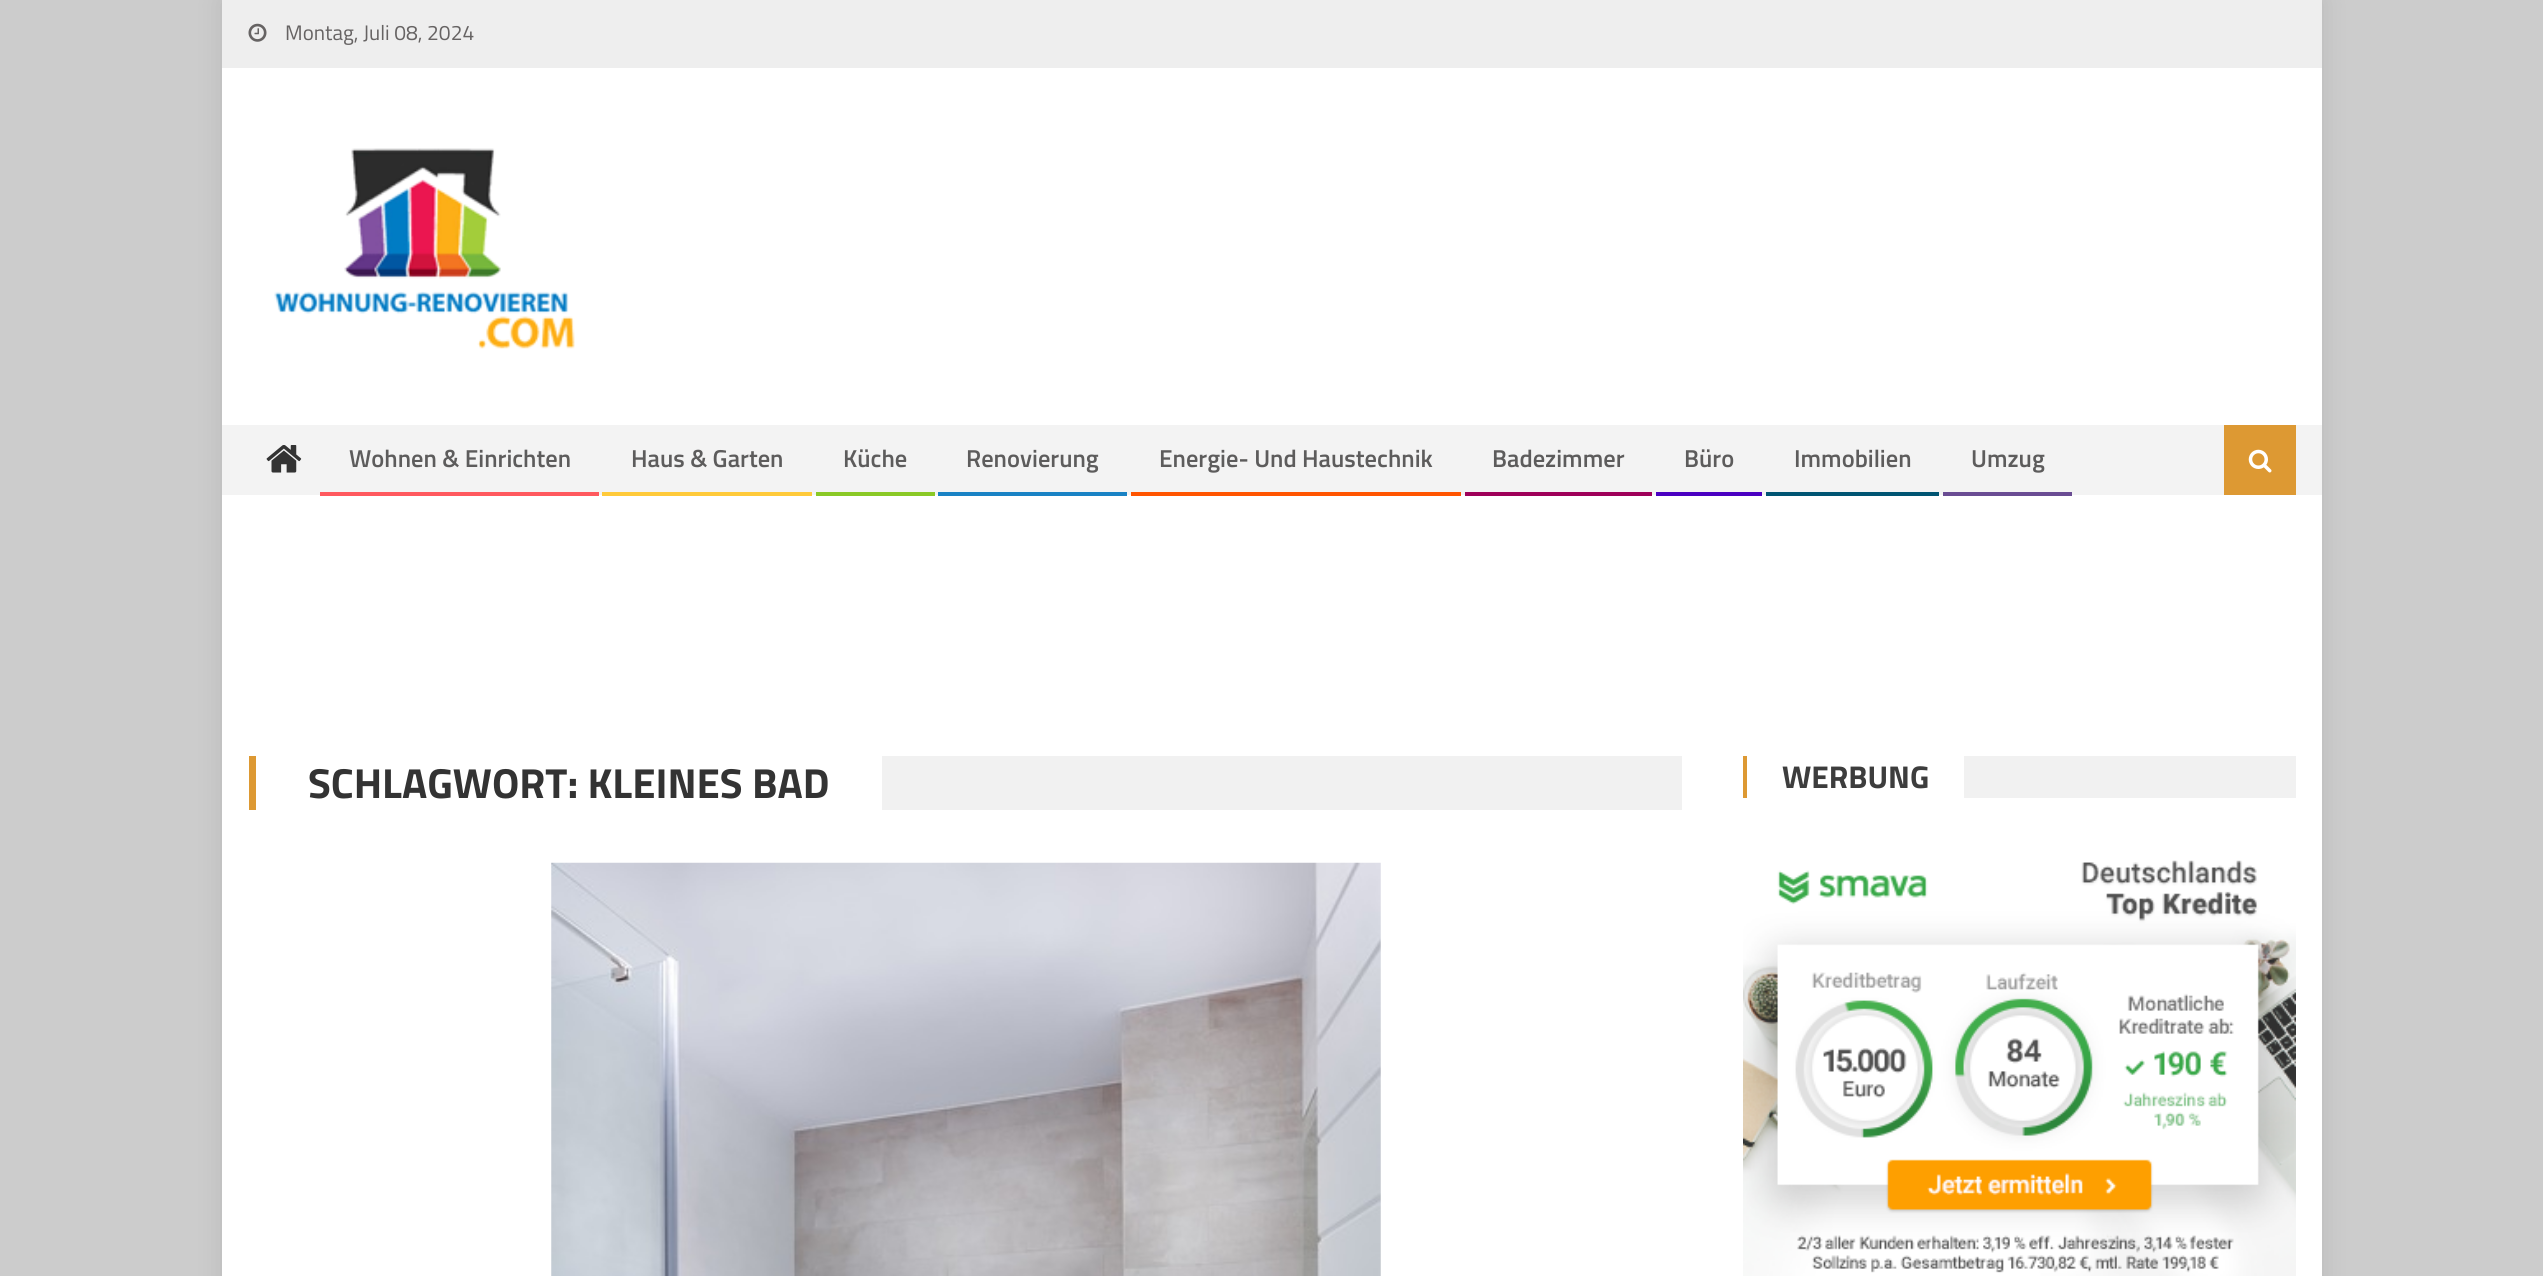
#include <cairo.h>
#include <math.h>
#include <stddef.h>


static void round_rect(cairo_t *cr, double x, double y, double w, double h, double r) {
    cairo_new_sub_path(cr);
    cairo_arc(cr, x + w - r, y + h - r, r, 0, M_PI / 2);
    cairo_arc(cr, x + r, y + h - r, r, M_PI / 2, M_PI);
    cairo_arc(cr, x + r, y + r, r, M_PI, 1.5 * M_PI);
    cairo_arc(cr, x + w - r, y + r, r, 1.5 * M_PI, 2 * M_PI);
    cairo_close_path(cr);
}

static void shadow(cairo_t *cr, double x, double y, double w, double h, double r, double blur, double alpha) {
    cairo_push_group_with_content(cr, CAIRO_CONTENT_ALPHA);
    cairo_set_operator(cr, CAIRO_OPERATOR_SOURCE);
    for (int i = 15; i >= -15 && fmin(w, h) + blur * i / 3 > 0; i -= 2) {
        double e = blur * i / 6;
        cairo_set_source_rgba(cr, 0, 0, 0, alpha * erfc((i - 1) / 8.5) / 2);
        round_rect(cr, x - e, y - e, w + 2 * e, h + 2 * e, fmax(0, fmin(r + e + blur * .6, fmin(w, h) / 2 + e)));
        cairo_fill(cr);
    }
    cairo_pattern_t *soft = cairo_pop_group(cr);
    cairo_mask(cr, soft);
    cairo_pattern_destroy(soft);
}

static void picture(cairo_t *cr, const char *path, double x, double y, double w, double h) {
    cairo_surface_t *image = cairo_image_surface_create_from_png(path);
    cairo_save(cr);
    cairo_set_source_surface(cr, image, x, y);
    cairo_rectangle(cr, x, y, w, h);
    cairo_fill(cr);
    cairo_restore(cr);
    cairo_surface_destroy(image);
}

int main(void) {
    cairo_surface_t *surface = cairo_image_surface_create(CAIRO_FORMAT_RGB24, 2543, 1276);
    cairo_t *cr = cairo_create(surface);
    cairo_font_options_t *options = cairo_font_options_create();
    cairo_font_options_set_hint_metrics(options, CAIRO_HINT_METRICS_OFF);
    cairo_font_options_set_hint_style(options, CAIRO_HINT_STYLE_NONE);
    cairo_set_font_options(cr, options);
    cairo_set_miter_limit(cr, 4);
    cairo_set_source_rgb(cr, 0.8, 0.8, 0.8);
    cairo_paint(cr);
    cairo_set_source_rgb(cr, 0, 0, 0);
    shadow(cr, 222, 0, 2100, 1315, 0, 13, 0.1);
    cairo_set_source_rgb(cr, 1, 1, 1);
    cairo_rectangle(cr, 222, 68, 2100, 1208);
    cairo_fill(cr);
    cairo_set_source_rgb(cr, 0.933, 0.933, 0.933);
    cairo_rectangle(cr, 222, 0, 2100, 68);
    cairo_fill(cr);
    picture(cr, "img1.png", 248, 23, 19, 19);
    cairo_select_font_face(cr, "Titillium Web", CAIRO_FONT_SLANT_NORMAL, CAIRO_FONT_WEIGHT_NORMAL);
    cairo_set_font_size(cr, 21);
    cairo_set_source_rgb(cr, 0.4, 0.388, 0.388);
    cairo_move_to(cr, 285, 40);
    cairo_show_text(cr, "Montag, Juli 08, 2024");
    picture(cr, "img2.png", 274, 148, 301, 201);
    cairo_set_source_rgb(cr, 0.953, 0.953, 0.953);
    cairo_rectangle(cr, 222, 425, 2100, 70);
    cairo_fill(cr);
    picture(cr, "img3.png", 266, 445, 36, 28);
    cairo_set_source_rgb(cr, 1, 0.349, 0.369);
    cairo_rectangle(cr, 320, 492, 279, 4);
    cairo_fill(cr);
    cairo_select_font_face(cr, "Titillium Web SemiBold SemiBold", CAIRO_FONT_SLANT_NORMAL, CAIRO_FONT_WEIGHT_NORMAL);
    cairo_set_font_size(cr, 24.5);
    cairo_set_source_rgb(cr, 0.365, 0.361, 0.361);
    cairo_move_to(cr, 349, 467);
    cairo_show_text(cr, "Wohnen & Einrichten");
    cairo_set_source_rgb(cr, 1, 0.792, 0.227);
    cairo_rectangle(cr, 602, 492, 210, 4);
    cairo_fill(cr);
    cairo_set_source_rgb(cr, 0.365, 0.361, 0.361);
    cairo_move_to(cr, 631, 467);
    cairo_show_text(cr, "Haus & Garten");
    cairo_set_source_rgb(cr, 0.541, 0.788, 0.149);
    cairo_rectangle(cr, 816, 492, 119, 4);
    cairo_fill(cr);
    cairo_set_source_rgb(cr, 0.365, 0.361, 0.361);
    cairo_move_to(cr, 843, 467);
    cairo_show_text(cr, "Küche");
    cairo_set_source_rgb(cr, 0.098, 0.51, 0.769);
    cairo_rectangle(cr, 938, 492, 189, 4);
    cairo_fill(cr);
    cairo_set_source_rgb(cr, 0.365, 0.361, 0.361);
    cairo_move_to(cr, 966, 467);
    cairo_show_text(cr, "Renovierung");
    cairo_set_source_rgb(cr, 1, 0.329, 0);
    cairo_rectangle(cr, 1131, 492, 330, 4);
    cairo_fill(cr);
    cairo_set_source_rgb(cr, 0.365, 0.361, 0.361);
    cairo_move_to(cr, 1159, 467);
    cairo_show_text(cr, "Energie- Und Haustechnik");
    cairo_set_source_rgb(cr, 0.62, 0, 0.349);
    cairo_rectangle(cr, 1465, 492, 187, 4);
    cairo_fill(cr);
    cairo_set_source_rgb(cr, 0.365, 0.361, 0.361);
    cairo_move_to(cr, 1492, 467);
    cairo_show_text(cr, "Badezimmer");
    cairo_set_source_rgb(cr, 0.29, 0, 0.757);
    cairo_rectangle(cr, 1656, 492, 106, 4);
    cairo_fill(cr);
    cairo_set_source_rgb(cr, 0.365, 0.361, 0.361);
    cairo_move_to(cr, 1684, 467);
    cairo_show_text(cr, "Büro");
    cairo_set_source_rgb(cr, 0, 0.329, 0.447);
    cairo_rectangle(cr, 1766, 492, 173, 4);
    cairo_fill(cr);
    cairo_set_source_rgb(cr, 0.365, 0.361, 0.361);
    cairo_move_to(cr, 1794, 467);
    cairo_show_text(cr, "Immobilien");
    cairo_set_source_rgb(cr, 0.416, 0.298, 0.576);
    cairo_rectangle(cr, 1943, 492, 129, 4);
    cairo_fill(cr);
    cairo_set_source_rgb(cr, 0.365, 0.361, 0.361);
    cairo_move_to(cr, 1971, 467);
    cairo_show_text(cr, "Umzug");
    cairo_set_source_rgb(cr, 0.867, 0.6, 0.2);
    cairo_rectangle(cr, 2224, 425, 72, 70);
    cairo_fill(cr);
    picture(cr, "img4.png", 2248, 449, 24, 24);
    cairo_set_source_rgb(cr, 0.945, 0.945, 0.945);
    cairo_rectangle(cr, 882, 756, 800, 54);
    cairo_fill(cr);
    cairo_set_source_rgb(cr, 0.867, 0.6, 0.2);
    cairo_rectangle(cr, 249, 756, 7, 54);
    cairo_fill(cr);
    cairo_select_font_face(cr, "Titillium Web", CAIRO_FONT_SLANT_NORMAL, CAIRO_FONT_WEIGHT_BOLD);
    cairo_set_font_size(cr, 42);
    cairo_set_source_rgb(cr, 0.2, 0.2, 0.2);
    cairo_move_to(cr, 308, 798);
    cairo_show_text(cr, "SCHLAGWORT: KLEINES BAD");
    picture(cr, "img5.png", 551, 862, 830, 414);
    cairo_set_source_rgb(cr, 0.945, 0.945, 0.945);
    cairo_rectangle(cr, 1964, 756, 332, 42);
    cairo_fill(cr);
    cairo_set_source_rgb(cr, 0.867, 0.6, 0.2);
    cairo_rectangle(cr, 1743, 756, 4, 42);
    cairo_fill(cr);
    cairo_set_font_size(cr, 31.5);
    cairo_set_source_rgb(cr, 0.239, 0.239, 0.239);
    cairo_move_to(cr, 1782, 788);
    cairo_show_text(cr, "WERBUNG");
    picture(cr, "img6.png", 1743, 860, 553, 416);
    cairo_surface_write_to_png(surface, "page.png");
    cairo_font_options_destroy(options);
    cairo_destroy(cr);
    cairo_surface_destroy(surface);
    return 0;
}
